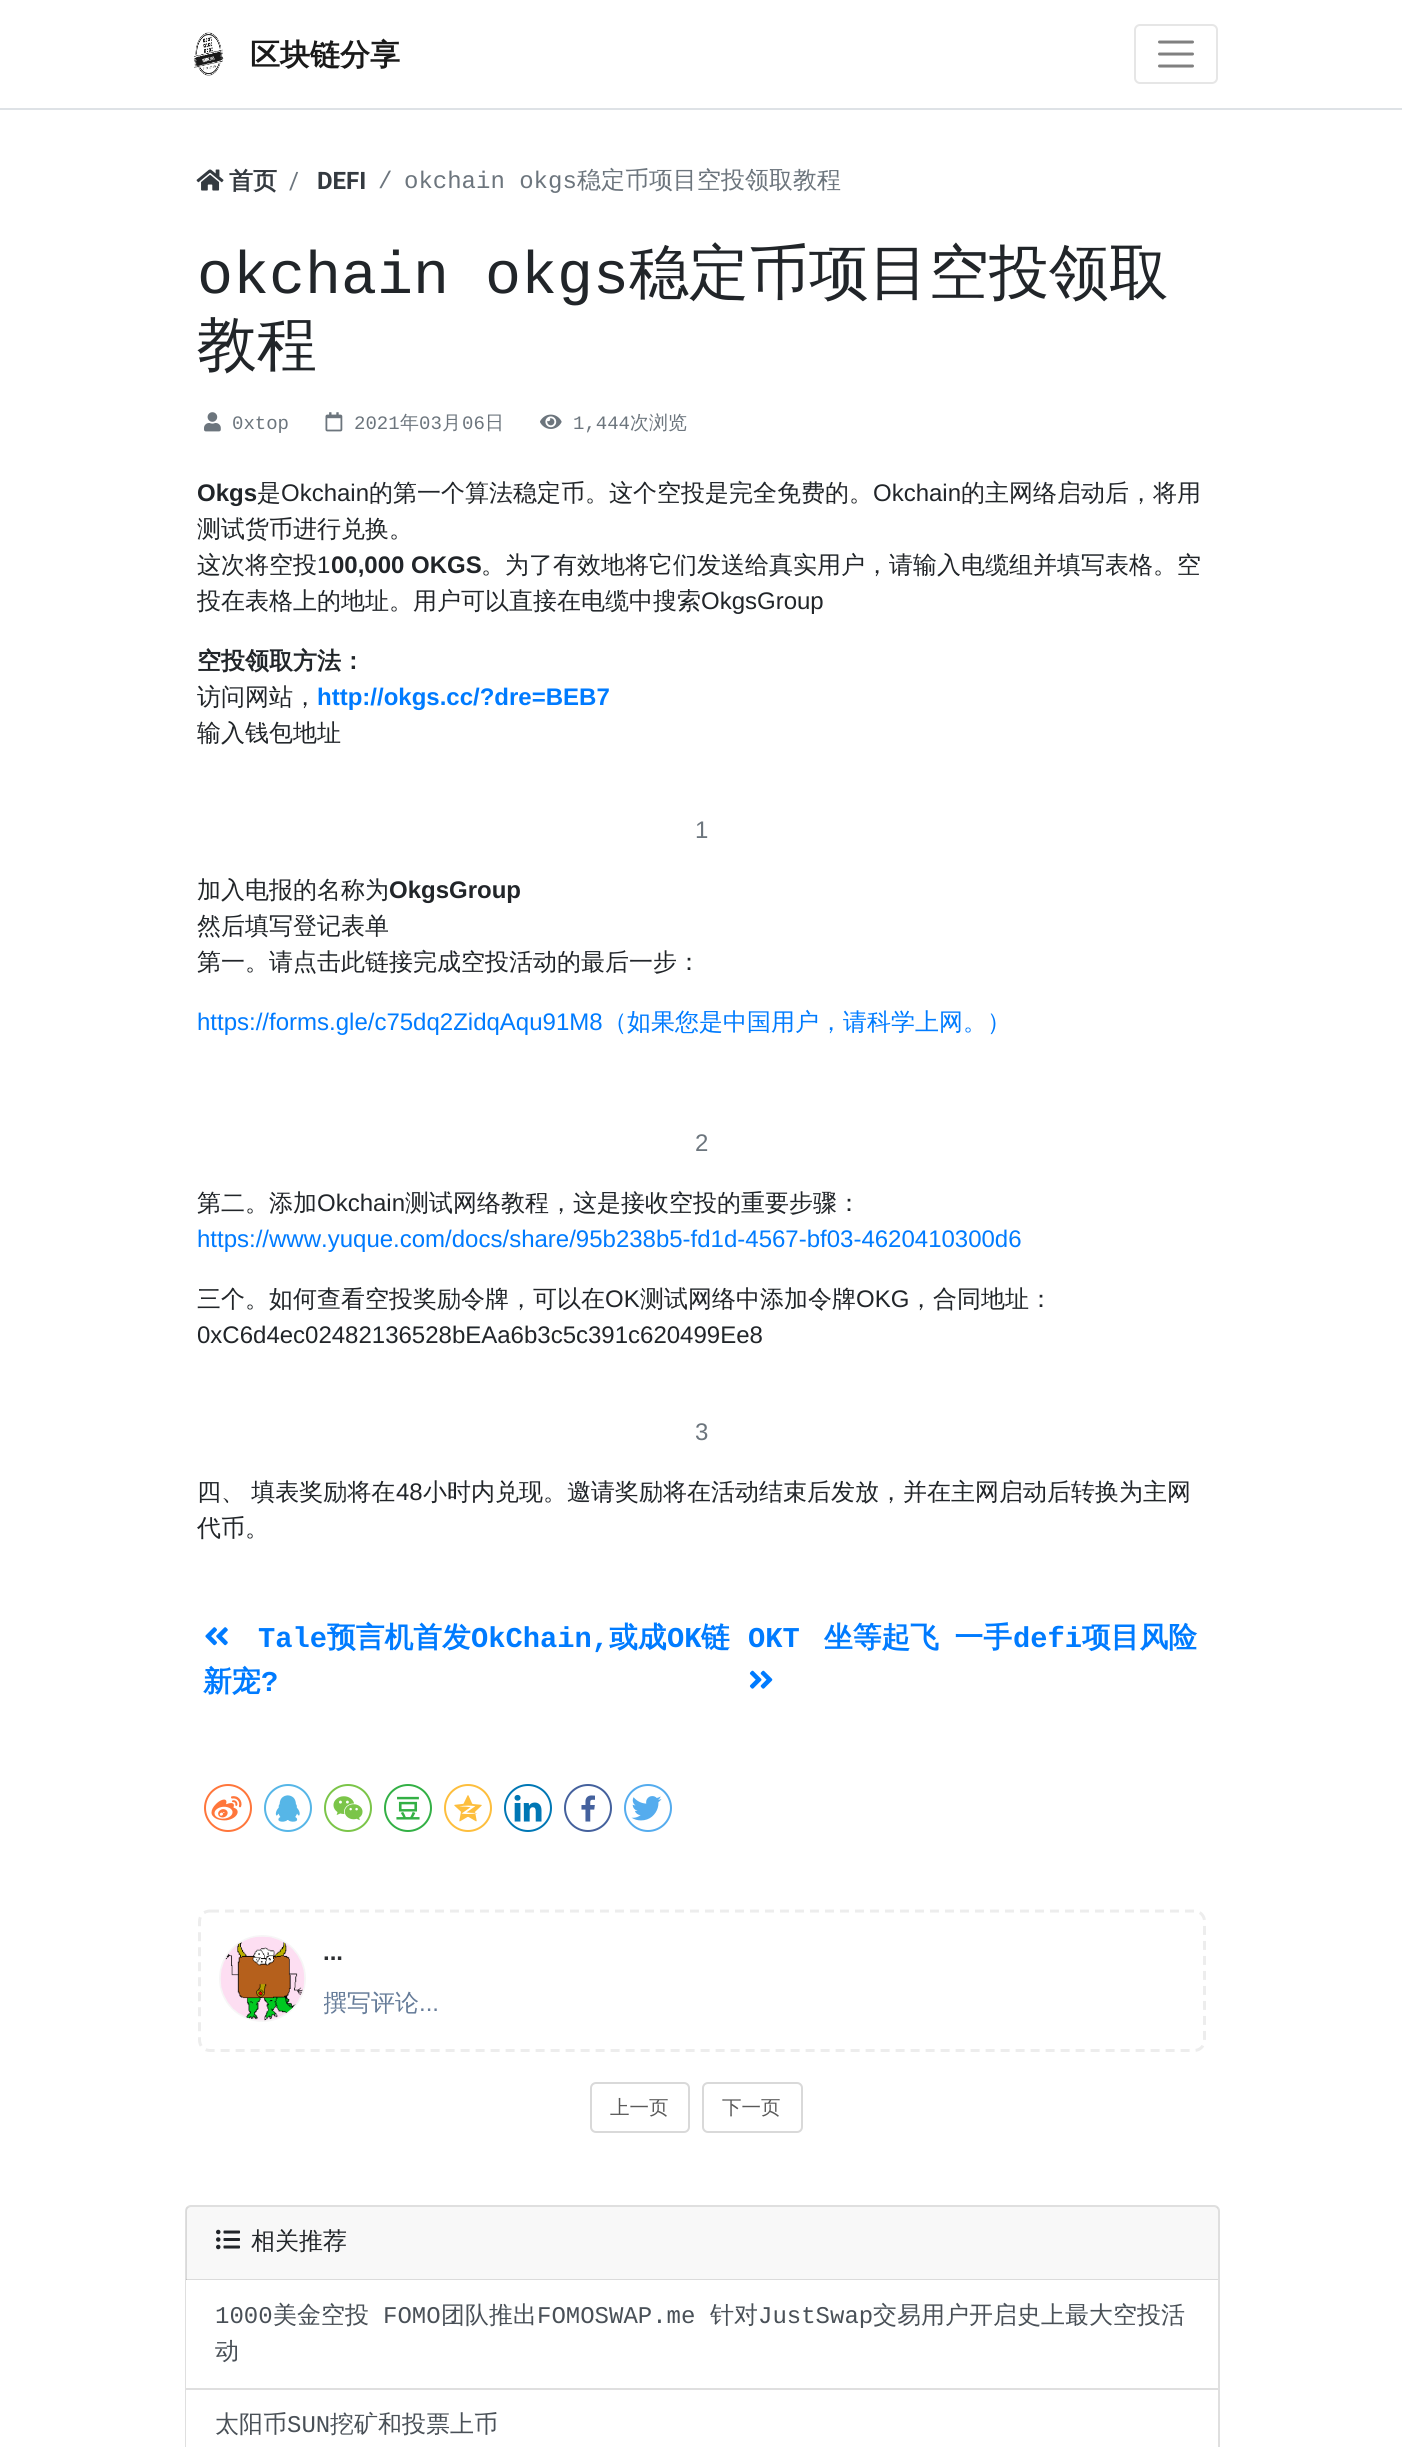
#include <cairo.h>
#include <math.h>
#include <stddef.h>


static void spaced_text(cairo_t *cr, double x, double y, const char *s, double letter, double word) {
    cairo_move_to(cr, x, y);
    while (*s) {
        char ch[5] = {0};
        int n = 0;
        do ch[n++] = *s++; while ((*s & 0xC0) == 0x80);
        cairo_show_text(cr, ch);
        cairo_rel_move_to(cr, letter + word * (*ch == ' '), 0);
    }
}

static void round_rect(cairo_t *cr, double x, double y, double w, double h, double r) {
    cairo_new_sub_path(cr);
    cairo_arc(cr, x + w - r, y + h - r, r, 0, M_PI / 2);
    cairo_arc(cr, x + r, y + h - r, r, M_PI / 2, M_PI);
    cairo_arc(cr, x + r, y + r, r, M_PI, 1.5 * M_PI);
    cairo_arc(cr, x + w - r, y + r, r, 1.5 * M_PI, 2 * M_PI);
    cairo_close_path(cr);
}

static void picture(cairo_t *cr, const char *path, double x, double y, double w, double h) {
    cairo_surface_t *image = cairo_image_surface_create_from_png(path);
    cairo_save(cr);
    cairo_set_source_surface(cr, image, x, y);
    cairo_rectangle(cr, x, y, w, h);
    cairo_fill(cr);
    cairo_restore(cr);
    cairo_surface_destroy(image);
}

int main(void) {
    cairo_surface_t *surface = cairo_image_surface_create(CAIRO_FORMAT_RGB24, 1402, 2447);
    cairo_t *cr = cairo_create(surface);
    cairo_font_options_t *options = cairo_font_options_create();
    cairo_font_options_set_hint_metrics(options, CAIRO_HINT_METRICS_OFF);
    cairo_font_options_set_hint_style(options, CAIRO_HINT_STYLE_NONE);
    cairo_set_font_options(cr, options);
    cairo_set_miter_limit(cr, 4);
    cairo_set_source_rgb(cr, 1, 1, 1);
    cairo_paint(cr);
    cairo_set_source_rgb(cr, 0.871, 0.886, 0.902);
    cairo_rectangle(cr, 0, 108, 1402, 2);
    cairo_fill(cr);
    picture(cr, "img1.png", 193, 32, 31, 44);
    cairo_select_font_face(cr, "WenQuanYi Zen Hei", CAIRO_FONT_SLANT_NORMAL, CAIRO_FONT_WEIGHT_BOLD);
    cairo_set_font_size(cr, 30);
    cairo_set_source_rgb(cr, 0.102, 0.102, 0.102);
    cairo_move_to(cr, 250, 65);
    cairo_show_text(cr, "区块链分享");
    round_rect(cr, 1135, 25, 82, 58, 5);
    cairo_set_source_rgb(cr, 0.902, 0.902, 0.902);
    cairo_stroke(cr);
    cairo_new_path(cr);
    cairo_move_to(cr, 1159.5, 42);
    cairo_line_to(cr, 1192.5, 42);
    cairo_move_to(cr, 1159.5, 54);
    cairo_line_to(cr, 1192.5, 54);
    cairo_move_to(cr, 1159.5, 66);
    cairo_line_to(cr, 1192.5, 66);
    cairo_set_source_rgb(cr, 0.502, 0.502, 0.502);
    cairo_set_line_width(cr, 3);
    cairo_set_line_cap(cr, CAIRO_LINE_CAP_ROUND);
    cairo_stroke(cr);
    picture(cr, "img2.png", 196, 169, 28, 22);
    cairo_set_font_size(cr, 24);
    cairo_set_source_rgb(cr, 0.204, 0.227, 0.251);
    cairo_move_to(cr, 229, 189);
    cairo_show_text(cr, "首页");
    cairo_select_font_face(cr, "Roboto", CAIRO_FONT_SLANT_NORMAL, CAIRO_FONT_WEIGHT_NORMAL);
    cairo_set_source_rgb(cr, 0.424, 0.459, 0.49);
    cairo_move_to(cr, 289, 189);
    cairo_show_text(cr, "/");
    cairo_select_font_face(cr, "Roboto", CAIRO_FONT_SLANT_NORMAL, CAIRO_FONT_WEIGHT_BOLD);
    cairo_set_source_rgb(cr, 0.204, 0.227, 0.251);
    cairo_move_to(cr, 317, 189);
    cairo_show_text(cr, "DEFI");
    cairo_select_font_face(cr, "Liberation Mono", CAIRO_FONT_SLANT_NORMAL, CAIRO_FONT_WEIGHT_NORMAL);
    cairo_set_source_rgb(cr, 0.424, 0.459, 0.49);
    cairo_move_to(cr, 378, 188);
    cairo_show_text(cr, "/");
    cairo_move_to(cr, 404, 188);
    cairo_show_text(cr, "okchain okgs");
    cairo_select_font_face(cr, "WenQuanYi Zen Hei Medium", CAIRO_FONT_SLANT_NORMAL, CAIRO_FONT_WEIGHT_NORMAL);
    cairo_move_to(cr, 577, 188);
    cairo_show_text(cr, "稳定币项目空投领取教程");
    cairo_select_font_face(cr, "Liberation Mono", CAIRO_FONT_SLANT_NORMAL, CAIRO_FONT_WEIGHT_NORMAL);
    cairo_set_font_size(cr, 60);
    cairo_set_source_rgb(cr, 0.129, 0.145, 0.161);
    cairo_move_to(cr, 197, 293);
    cairo_show_text(cr, "okchain okgs");
    cairo_select_font_face(cr, "WenQuanYi Zen Hei Medium", CAIRO_FONT_SLANT_NORMAL, CAIRO_FONT_WEIGHT_NORMAL);
    cairo_move_to(cr, 629, 293);
    cairo_show_text(cr, "稳定币项目空投领取");
    cairo_move_to(cr, 197, 365);
    cairo_show_text(cr, "教程");
    picture(cr, "img3.png", 204, 412, 17, 20);
    cairo_select_font_face(cr, "Liberation Mono", CAIRO_FONT_SLANT_NORMAL, CAIRO_FONT_WEIGHT_NORMAL);
    cairo_set_font_size(cr, 19);
    cairo_set_source_rgb(cr, 0.424, 0.459, 0.49);
    cairo_move_to(cr, 232, 429);
    cairo_show_text(cr, "0xtop");
    picture(cr, "img4.png", 325, 412, 18, 20);
    cairo_move_to(cr, 354, 429);
    cairo_show_text(cr, "2021");
    cairo_select_font_face(cr, "WenQuanYi Zen Hei Medium", CAIRO_FONT_SLANT_NORMAL, CAIRO_FONT_WEIGHT_NORMAL);
    cairo_move_to(cr, 400, 429);
    cairo_show_text(cr, "年");
    cairo_select_font_face(cr, "Liberation Mono", CAIRO_FONT_SLANT_NORMAL, CAIRO_FONT_WEIGHT_NORMAL);
    cairo_move_to(cr, 419, 429);
    cairo_show_text(cr, "03");
    cairo_select_font_face(cr, "WenQuanYi Zen Hei Medium", CAIRO_FONT_SLANT_NORMAL, CAIRO_FONT_WEIGHT_NORMAL);
    cairo_move_to(cr, 442, 429);
    cairo_show_text(cr, "月");
    cairo_select_font_face(cr, "Liberation Mono", CAIRO_FONT_SLANT_NORMAL, CAIRO_FONT_WEIGHT_NORMAL);
    cairo_move_to(cr, 462, 429);
    cairo_show_text(cr, "06");
    cairo_select_font_face(cr, "WenQuanYi Zen Hei Medium", CAIRO_FONT_SLANT_NORMAL, CAIRO_FONT_WEIGHT_NORMAL);
    cairo_move_to(cr, 485, 429);
    cairo_show_text(cr, "日");
    picture(cr, "img5.png", 540, 414, 22, 15);
    cairo_select_font_face(cr, "Liberation Mono", CAIRO_FONT_SLANT_NORMAL, CAIRO_FONT_WEIGHT_NORMAL);
    cairo_move_to(cr, 573, 429);
    cairo_show_text(cr, "1,444");
    cairo_select_font_face(cr, "WenQuanYi Zen Hei Medium", CAIRO_FONT_SLANT_NORMAL, CAIRO_FONT_WEIGHT_NORMAL);
    cairo_move_to(cr, 630, 429);
    cairo_show_text(cr, "次浏览");
    cairo_select_font_face(cr, "Liberation Sans", CAIRO_FONT_SLANT_NORMAL, CAIRO_FONT_WEIGHT_BOLD);
    cairo_set_font_size(cr, 24);
    cairo_set_source_rgb(cr, 0.129, 0.145, 0.161);
    cairo_move_to(cr, 197, 501);
    cairo_show_text(cr, "Okgs");
    cairo_select_font_face(cr, "WenQuanYi Zen Hei Medium", CAIRO_FONT_SLANT_NORMAL, CAIRO_FONT_WEIGHT_NORMAL);
    cairo_move_to(cr, 257, 501);
    cairo_show_text(cr, "是");
    cairo_select_font_face(cr, "Liberation Sans", CAIRO_FONT_SLANT_NORMAL, CAIRO_FONT_WEIGHT_NORMAL);
    cairo_move_to(cr, 281, 501);
    cairo_show_text(cr, "Okchain");
    cairo_select_font_face(cr, "WenQuanYi Zen Hei Medium", CAIRO_FONT_SLANT_NORMAL, CAIRO_FONT_WEIGHT_NORMAL);
    cairo_move_to(cr, 369, 501);
    cairo_show_text(cr, "的第一个算法稳定币。这个空投是完全免费的。");
    cairo_select_font_face(cr, "Liberation Sans", CAIRO_FONT_SLANT_NORMAL, CAIRO_FONT_WEIGHT_NORMAL);
    cairo_move_to(cr, 873, 501);
    cairo_show_text(cr, "Okchain");
    cairo_select_font_face(cr, "WenQuanYi Zen Hei Medium", CAIRO_FONT_SLANT_NORMAL, CAIRO_FONT_WEIGHT_NORMAL);
    cairo_move_to(cr, 961, 501);
    cairo_show_text(cr, "的主网络启动后，将用");
    cairo_move_to(cr, 197, 537);
    cairo_show_text(cr, "测试货币进行兑换。");
    cairo_move_to(cr, 197, 573);
    cairo_show_text(cr, "这次将空投");
    cairo_select_font_face(cr, "Liberation Sans", CAIRO_FONT_SLANT_NORMAL, CAIRO_FONT_WEIGHT_NORMAL);
    cairo_move_to(cr, 317, 573);
    cairo_show_text(cr, "1");
    cairo_select_font_face(cr, "Liberation Sans", CAIRO_FONT_SLANT_NORMAL, CAIRO_FONT_WEIGHT_BOLD);
    cairo_move_to(cr, 331, 573);
    cairo_show_text(cr, "00,000 OKGS");
    cairo_select_font_face(cr, "WenQuanYi Zen Hei Medium", CAIRO_FONT_SLANT_NORMAL, CAIRO_FONT_WEIGHT_NORMAL);
    cairo_move_to(cr, 481, 573);
    cairo_show_text(cr, "。为了有效地将它们发送给真实用户，请输入电缆组并填写表格。空");
    cairo_move_to(cr, 197, 609);
    cairo_show_text(cr, "投在表格上的地址。用户可以直接在电缆中搜索");
    cairo_select_font_face(cr, "Liberation Sans", CAIRO_FONT_SLANT_NORMAL, CAIRO_FONT_WEIGHT_NORMAL);
    cairo_move_to(cr, 701, 609);
    cairo_show_text(cr, "OkgsGroup");
    cairo_select_font_face(cr, "WenQuanYi Zen Hei", CAIRO_FONT_SLANT_NORMAL, CAIRO_FONT_WEIGHT_BOLD);
    cairo_move_to(cr, 197, 669);
    cairo_show_text(cr, "空投领取方法：");
    cairo_select_font_face(cr, "WenQuanYi Zen Hei Medium", CAIRO_FONT_SLANT_NORMAL, CAIRO_FONT_WEIGHT_NORMAL);
    cairo_move_to(cr, 197, 705);
    cairo_show_text(cr, "访问网站，");
    cairo_select_font_face(cr, "Liberation Sans", CAIRO_FONT_SLANT_NORMAL, CAIRO_FONT_WEIGHT_BOLD);
    cairo_set_source_rgb(cr, 0, 0.482, 1);
    cairo_move_to(cr, 317, 705);
    cairo_show_text(cr, "http://okgs.cc/?dre=BEB7");
    cairo_select_font_face(cr, "WenQuanYi Zen Hei Medium", CAIRO_FONT_SLANT_NORMAL, CAIRO_FONT_WEIGHT_NORMAL);
    cairo_set_source_rgb(cr, 0.129, 0.145, 0.161);
    cairo_move_to(cr, 197, 741);
    cairo_show_text(cr, "输入钱包地址");
    cairo_select_font_face(cr, "Liberation Sans", CAIRO_FONT_SLANT_NORMAL, CAIRO_FONT_WEIGHT_NORMAL);
    cairo_set_source_rgb(cr, 0.424, 0.459, 0.49);
    cairo_move_to(cr, 695, 838);
    cairo_show_text(cr, "1");
    cairo_select_font_face(cr, "WenQuanYi Zen Hei Medium", CAIRO_FONT_SLANT_NORMAL, CAIRO_FONT_WEIGHT_NORMAL);
    cairo_set_source_rgb(cr, 0.129, 0.145, 0.161);
    cairo_move_to(cr, 197, 898);
    cairo_show_text(cr, "加入电报的名称为");
    cairo_select_font_face(cr, "Liberation Sans", CAIRO_FONT_SLANT_NORMAL, CAIRO_FONT_WEIGHT_BOLD);
    cairo_move_to(cr, 389, 898);
    cairo_show_text(cr, "OkgsGroup");
    cairo_select_font_face(cr, "WenQuanYi Zen Hei Medium", CAIRO_FONT_SLANT_NORMAL, CAIRO_FONT_WEIGHT_NORMAL);
    cairo_move_to(cr, 197, 934);
    cairo_show_text(cr, "然后填写登记表单");
    cairo_move_to(cr, 197, 970);
    cairo_show_text(cr, "第一。请点击此链接完成空投活动的最后一步：");
    cairo_select_font_face(cr, "Liberation Sans", CAIRO_FONT_SLANT_NORMAL, CAIRO_FONT_WEIGHT_NORMAL);
    cairo_set_source_rgb(cr, 0, 0.482, 1);
    cairo_move_to(cr, 197, 1030);
    cairo_show_text(cr, "https://forms.gle/c75dq2ZidqAqu91M8");
    cairo_select_font_face(cr, "WenQuanYi Zen Hei Medium", CAIRO_FONT_SLANT_NORMAL, CAIRO_FONT_WEIGHT_NORMAL);
    cairo_move_to(cr, 603, 1030);
    cairo_show_text(cr, "（如果您是中国用户，请科学上网。）");
    cairo_select_font_face(cr, "Liberation Sans", CAIRO_FONT_SLANT_NORMAL, CAIRO_FONT_WEIGHT_NORMAL);
    cairo_set_source_rgb(cr, 0.424, 0.459, 0.49);
    cairo_move_to(cr, 695, 1151);
    cairo_show_text(cr, "2");
    cairo_select_font_face(cr, "WenQuanYi Zen Hei Medium", CAIRO_FONT_SLANT_NORMAL, CAIRO_FONT_WEIGHT_NORMAL);
    cairo_set_source_rgb(cr, 0.129, 0.145, 0.161);
    cairo_move_to(cr, 197, 1211);
    cairo_show_text(cr, "第二。添加");
    cairo_select_font_face(cr, "Liberation Sans", CAIRO_FONT_SLANT_NORMAL, CAIRO_FONT_WEIGHT_NORMAL);
    cairo_move_to(cr, 317, 1211);
    cairo_show_text(cr, "Okchain");
    cairo_select_font_face(cr, "WenQuanYi Zen Hei Medium", CAIRO_FONT_SLANT_NORMAL, CAIRO_FONT_WEIGHT_NORMAL);
    cairo_move_to(cr, 405, 1211);
    cairo_show_text(cr, "测试网络教程，这是接收空投的重要步骤：");
    cairo_select_font_face(cr, "Liberation Sans", CAIRO_FONT_SLANT_NORMAL, CAIRO_FONT_WEIGHT_NORMAL);
    cairo_set_source_rgb(cr, 0, 0.482, 1);
    cairo_move_to(cr, 197, 1247);
    cairo_show_text(cr, "https://www.yuque.com/docs/share/95b238b5-fd1d-4567-bf03-4620410300d6");
    cairo_select_font_face(cr, "WenQuanYi Zen Hei Medium", CAIRO_FONT_SLANT_NORMAL, CAIRO_FONT_WEIGHT_NORMAL);
    cairo_set_source_rgb(cr, 0.129, 0.145, 0.161);
    cairo_move_to(cr, 197, 1307);
    cairo_show_text(cr, "三个。如何查看空投奖励令牌，可以在");
    cairo_select_font_face(cr, "Liberation Sans", CAIRO_FONT_SLANT_NORMAL, CAIRO_FONT_WEIGHT_NORMAL);
    cairo_move_to(cr, 605, 1307);
    cairo_show_text(cr, "OK");
    cairo_select_font_face(cr, "WenQuanYi Zen Hei Medium", CAIRO_FONT_SLANT_NORMAL, CAIRO_FONT_WEIGHT_NORMAL);
    cairo_move_to(cr, 640, 1307);
    cairo_show_text(cr, "测试网络中添加令牌");
    cairo_select_font_face(cr, "Liberation Sans", CAIRO_FONT_SLANT_NORMAL, CAIRO_FONT_WEIGHT_NORMAL);
    cairo_move_to(cr, 856, 1307);
    cairo_show_text(cr, "OKG");
    cairo_select_font_face(cr, "WenQuanYi Zen Hei Medium", CAIRO_FONT_SLANT_NORMAL, CAIRO_FONT_WEIGHT_NORMAL);
    cairo_move_to(cr, 909, 1307);
    cairo_show_text(cr, "，合同地址：");
    cairo_select_font_face(cr, "Liberation Sans", CAIRO_FONT_SLANT_NORMAL, CAIRO_FONT_WEIGHT_NORMAL);
    cairo_move_to(cr, 197, 1343);
    cairo_show_text(cr, "0xC6d4ec02482136528bEAa6b3c5c391c620499Ee8");
    cairo_set_source_rgb(cr, 0.424, 0.459, 0.49);
    cairo_move_to(cr, 695, 1440);
    cairo_show_text(cr, "3");
    cairo_select_font_face(cr, "WenQuanYi Zen Hei Medium", CAIRO_FONT_SLANT_NORMAL, CAIRO_FONT_WEIGHT_NORMAL);
    cairo_set_source_rgb(cr, 0.129, 0.145, 0.161);
    spaced_text(cr, 197, 1500, "四、 填表奖励将在", 0, -1);
    cairo_select_font_face(cr, "Liberation Sans", CAIRO_FONT_SLANT_NORMAL, CAIRO_FONT_WEIGHT_NORMAL);
    cairo_move_to(cr, 396, 1500);
    cairo_show_text(cr, "48");
    cairo_select_font_face(cr, "WenQuanYi Zen Hei Medium", CAIRO_FONT_SLANT_NORMAL, CAIRO_FONT_WEIGHT_NORMAL);
    cairo_move_to(cr, 423, 1500);
    cairo_show_text(cr, "小时内兑现。邀请奖励将在活动结束后发放，并在主网启动后转换为主网");
    cairo_move_to(cr, 197, 1536);
    cairo_show_text(cr, "代币。");
    picture(cr, "img6.png", 205, 1627, 23, 19);
    cairo_select_font_face(cr, "Liberation Mono", CAIRO_FONT_SLANT_NORMAL, CAIRO_FONT_WEIGHT_BOLD);
    cairo_set_font_size(cr, 28.75);
    cairo_set_source_rgb(cr, 0, 0.482, 1);
    cairo_move_to(cr, 258, 1647);
    cairo_show_text(cr, "Tale");
    cairo_select_font_face(cr, "WenQuanYi Zen Hei", CAIRO_FONT_SLANT_NORMAL, CAIRO_FONT_WEIGHT_BOLD);
    cairo_move_to(cr, 327, 1647);
    cairo_show_text(cr, "预言机首发");
    cairo_select_font_face(cr, "Liberation Mono", CAIRO_FONT_SLANT_NORMAL, CAIRO_FONT_WEIGHT_BOLD);
    cairo_move_to(cr, 471, 1647);
    cairo_show_text(cr, "OkChain,");
    cairo_select_font_face(cr, "WenQuanYi Zen Hei", CAIRO_FONT_SLANT_NORMAL, CAIRO_FONT_WEIGHT_BOLD);
    cairo_move_to(cr, 609, 1647);
    cairo_show_text(cr, "或成");
    cairo_select_font_face(cr, "Liberation Mono", CAIRO_FONT_SLANT_NORMAL, CAIRO_FONT_WEIGHT_BOLD);
    cairo_move_to(cr, 667, 1647);
    cairo_show_text(cr, "OK");
    cairo_select_font_face(cr, "WenQuanYi Zen Hei", CAIRO_FONT_SLANT_NORMAL, CAIRO_FONT_WEIGHT_BOLD);
    cairo_move_to(cr, 701, 1647);
    cairo_show_text(cr, "链");
    cairo_move_to(cr, 203, 1691);
    cairo_show_text(cr, "新宠");
    cairo_select_font_face(cr, "Liberation Mono", CAIRO_FONT_SLANT_NORMAL, CAIRO_FONT_WEIGHT_BOLD);
    cairo_move_to(cr, 261, 1691);
    cairo_show_text(cr, "?");
    cairo_move_to(cr, 748, 1647);
    cairo_show_text(cr, "OKT");
    cairo_select_font_face(cr, "WenQuanYi Zen Hei", CAIRO_FONT_SLANT_NORMAL, CAIRO_FONT_WEIGHT_BOLD);
    spaced_text(cr, 824, 1647, "坐等起飞 一手", 0, 7);
    cairo_select_font_face(cr, "Liberation Mono", CAIRO_FONT_SLANT_NORMAL, CAIRO_FONT_WEIGHT_BOLD);
    cairo_move_to(cr, 1013, 1647);
    cairo_show_text(cr, "defi");
    cairo_select_font_face(cr, "WenQuanYi Zen Hei", CAIRO_FONT_SLANT_NORMAL, CAIRO_FONT_WEIGHT_BOLD);
    cairo_move_to(cr, 1082, 1647);
    cairo_show_text(cr, "项目风险");
    picture(cr, "img7.png", 749, 1670, 24, 19);
    cairo_arc(cr, 228, 1808, 23, 0, 2 * M_PI);
    cairo_set_source_rgb(cr, 1, 0.463, 0.231);
    cairo_set_line_width(cr, 2);
    cairo_set_line_cap(cr, CAIRO_LINE_CAP_BUTT);
    cairo_stroke(cr);
    picture(cr, "img8.png", 211, 1796, 31, 25);
    cairo_arc(cr, 288, 1808, 23, 0, 2 * M_PI);
    cairo_set_source_rgb(cr, 0.337, 0.714, 0.906);
    cairo_stroke(cr);
    picture(cr, "img9.png", 275, 1795, 25, 27);
    cairo_arc(cr, 348, 1808, 23, 0, 2 * M_PI);
    cairo_set_source_rgb(cr, 0.482, 0.773, 0.286);
    cairo_stroke(cr);
    picture(cr, "img10.png", 333, 1796, 30, 25);
    cairo_arc(cr, 408, 1808, 23, 0, 2 * M_PI);
    cairo_set_source_rgb(cr, 0.2, 0.69, 0.271);
    cairo_stroke(cr);
    picture(cr, "img11.png", 396, 1796, 24, 24);
    cairo_arc(cr, 468, 1808, 23, 0, 2 * M_PI);
    cairo_set_source_rgb(cr, 0.992, 0.745, 0.239);
    cairo_stroke(cr);
    picture(cr, "img12.png", 454, 1795, 28, 27);
    cairo_arc(cr, 528, 1808, 23, 0, 2 * M_PI);
    cairo_set_source_rgb(cr, 0, 0.467, 0.71);
    cairo_stroke(cr);
    picture(cr, "img13.png", 514, 1794, 28, 28);
    cairo_arc(cr, 588, 1808, 23, 0, 2 * M_PI);
    cairo_set_source_rgb(cr, 0.267, 0.38, 0.616);
    cairo_stroke(cr);
    picture(cr, "img14.png", 581, 1795, 14, 27);
    cairo_arc(cr, 648, 1808, 23, 0, 2 * M_PI);
    cairo_set_source_rgb(cr, 0.333, 0.675, 0.933);
    cairo_stroke(cr);
    picture(cr, "img15.png", 631, 1796, 31, 25);
    cairo_new_path(cr);
    cairo_move_to(cr, 210, 1911);
    cairo_line_to(cr, 1194, 1911);
    cairo_curve_to(cr, 1200, 1911, 1204.5, 1915.5, 1204.5, 1921.5);
    cairo_line_to(cr, 1204.5, 2040);
    cairo_curve_to(cr, 1204.5, 2046, 1200, 2050.5, 1194, 2050.5);
    cairo_line_to(cr, 210, 2050.5);
    cairo_curve_to(cr, 204, 2050.5, 199.5, 2046, 199.5, 2040);
    cairo_line_to(cr, 199.5, 1921.5);
    cairo_curve_to(cr, 199.5, 1915.5, 204, 1911, 210, 1911);
    cairo_close_path(cr);
    cairo_set_source_rgb(cr, 0.929, 0.929, 0.929);
    cairo_set_line_width(cr, 3);
    cairo_set_dash(cr, (double[]){9, 6}, 2, 0);
    cairo_stroke(cr);
    cairo_arc(cr, 262.5, 1978.5, 42.5, 0, 2 * M_PI);
    cairo_set_source_rgb(cr, 0.961, 0.961, 0.961);
    cairo_set_line_width(cr, 2);
    cairo_set_dash(cr, NULL, 0, 0);
    cairo_stroke(cr);
    picture(cr, "img16.png", 220, 1936, 85, 85);
    cairo_select_font_face(cr, "Liberation Sans", CAIRO_FONT_SLANT_NORMAL, CAIRO_FONT_WEIGHT_BOLD);
    cairo_set_font_size(cr, 24);
    cairo_set_source_rgb(cr, 0.173, 0.18, 0.192);
    cairo_move_to(cr, 323, 1960);
    cairo_show_text(cr, "...");
    cairo_save(cr);
    cairo_rectangle(cr, 324, 1935, 879, 114);
    cairo_clip(cr);
    cairo_select_font_face(cr, "WenQuanYi Zen Hei Medium", CAIRO_FONT_SLANT_NORMAL, CAIRO_FONT_WEIGHT_NORMAL);
    cairo_set_source_rgb(cr, 0.4, 0.486, 0.6);
    cairo_move_to(cr, 323, 2011);
    cairo_show_text(cr, "撰写评论");
    cairo_restore(cr);
    cairo_select_font_face(cr, "Liberation Sans", CAIRO_FONT_SLANT_NORMAL, CAIRO_FONT_WEIGHT_NORMAL);
    cairo_set_source_rgb(cr, 0.4, 0.486, 0.6);
    cairo_move_to(cr, 419, 2011);
    cairo_show_text(cr, "...");
    round_rect(cr, 591, 2083, 98, 49, 5);
    cairo_set_source_rgb(cr, 0.851, 0.851, 0.851);
    cairo_stroke(cr);
    cairo_select_font_face(cr, "WenQuanYi Zen Hei Medium", CAIRO_FONT_SLANT_NORMAL, CAIRO_FONT_WEIGHT_NORMAL);
    cairo_set_font_size(cr, 19.5);
    cairo_set_source_rgb(cr, 0.349, 0.349, 0.349);
    cairo_move_to(cr, 610, 2114);
    cairo_show_text(cr, "上一页");
    round_rect(cr, 703, 2083, 99, 49, 5);
    cairo_set_source_rgb(cr, 0.851, 0.851, 0.851);
    cairo_stroke(cr);
    cairo_set_source_rgb(cr, 0.349, 0.349, 0.349);
    cairo_move_to(cr, 722, 2114);
    cairo_show_text(cr, "下一页");
    round_rect(cr, 186, 2206, 1033, 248, 5);
    cairo_set_source_rgb(cr, 0.875, 0.875, 0.875);
    cairo_stroke(cr);
    cairo_set_source_rgba(cr, 0, 0, 0, 0.03);
    cairo_rectangle(cr, 186, 2207, 1032, 73);
    cairo_fill(cr);
    cairo_set_source_rgba(cr, 0, 0, 0, 0.12);
    cairo_rectangle(cr, 186, 2279, 1032, 1);
    cairo_fill(cr);
    picture(cr, "img17.png", 216, 2229, 24, 21);
    cairo_set_font_size(cr, 24);
    cairo_set_source_rgb(cr, 0.129, 0.145, 0.161);
    cairo_move_to(cr, 251, 2249);
    cairo_show_text(cr, "相关推荐");
    cairo_set_source_rgb(cr, 1, 1, 1);
    cairo_rectangle(cr, 186, 2280, 1, 108);
    cairo_fill(cr);
    cairo_set_source_rgb(cr, 0.875, 0.875, 0.875);
    cairo_rectangle(cr, 186, 2388, 1032, 2);
    cairo_fill(cr);
    cairo_select_font_face(cr, "Liberation Mono", CAIRO_FONT_SLANT_NORMAL, CAIRO_FONT_WEIGHT_NORMAL);
    cairo_set_source_rgb(cr, 0.286, 0.314, 0.341);
    cairo_move_to(cr, 215, 2323);
    cairo_show_text(cr, "1000");
    cairo_select_font_face(cr, "WenQuanYi Zen Hei Medium", CAIRO_FONT_SLANT_NORMAL, CAIRO_FONT_WEIGHT_NORMAL);
    cairo_move_to(cr, 273, 2323);
    cairo_show_text(cr, "美金空投");
    cairo_select_font_face(cr, "Liberation Mono", CAIRO_FONT_SLANT_NORMAL, CAIRO_FONT_WEIGHT_NORMAL);
    cairo_move_to(cr, 383, 2323);
    cairo_show_text(cr, "FOMO");
    cairo_select_font_face(cr, "WenQuanYi Zen Hei Medium", CAIRO_FONT_SLANT_NORMAL, CAIRO_FONT_WEIGHT_NORMAL);
    cairo_move_to(cr, 441, 2323);
    cairo_show_text(cr, "团队推出");
    cairo_select_font_face(cr, "Liberation Mono", CAIRO_FONT_SLANT_NORMAL, CAIRO_FONT_WEIGHT_NORMAL);
    cairo_move_to(cr, 537, 2323);
    cairo_show_text(cr, "FOMOSWAP.me");
    cairo_select_font_face(cr, "WenQuanYi Zen Hei Medium", CAIRO_FONT_SLANT_NORMAL, CAIRO_FONT_WEIGHT_NORMAL);
    cairo_move_to(cr, 710, 2323);
    cairo_show_text(cr, "针对");
    cairo_select_font_face(cr, "Liberation Mono", CAIRO_FONT_SLANT_NORMAL, CAIRO_FONT_WEIGHT_NORMAL);
    cairo_move_to(cr, 758, 2323);
    cairo_show_text(cr, "JustSwap");
    cairo_select_font_face(cr, "WenQuanYi Zen Hei Medium", CAIRO_FONT_SLANT_NORMAL, CAIRO_FONT_WEIGHT_NORMAL);
    cairo_move_to(cr, 873, 2323);
    cairo_show_text(cr, "交易用户开启史上最大空投活");
    cairo_move_to(cr, 215, 2359);
    cairo_show_text(cr, "动");
    cairo_set_source_rgb(cr, 1, 1, 1);
    cairo_rectangle(cr, 186, 2390, 1, 57);
    cairo_fill(cr);
    cairo_set_source_rgb(cr, 0.286, 0.314, 0.341);
    cairo_move_to(cr, 215, 2432);
    cairo_show_text(cr, "太阳币");
    cairo_select_font_face(cr, "Liberation Mono", CAIRO_FONT_SLANT_NORMAL, CAIRO_FONT_WEIGHT_NORMAL);
    cairo_move_to(cr, 287, 2432);
    cairo_show_text(cr, "SUN");
    cairo_select_font_face(cr, "WenQuanYi Zen Hei Medium", CAIRO_FONT_SLANT_NORMAL, CAIRO_FONT_WEIGHT_NORMAL);
    cairo_move_to(cr, 330, 2432);
    cairo_show_text(cr, "挖矿和投票上币");
    cairo_surface_write_to_png(surface, "page.png");
    cairo_font_options_destroy(options);
    cairo_destroy(cr);
    cairo_surface_destroy(surface);
    return 0;
}
